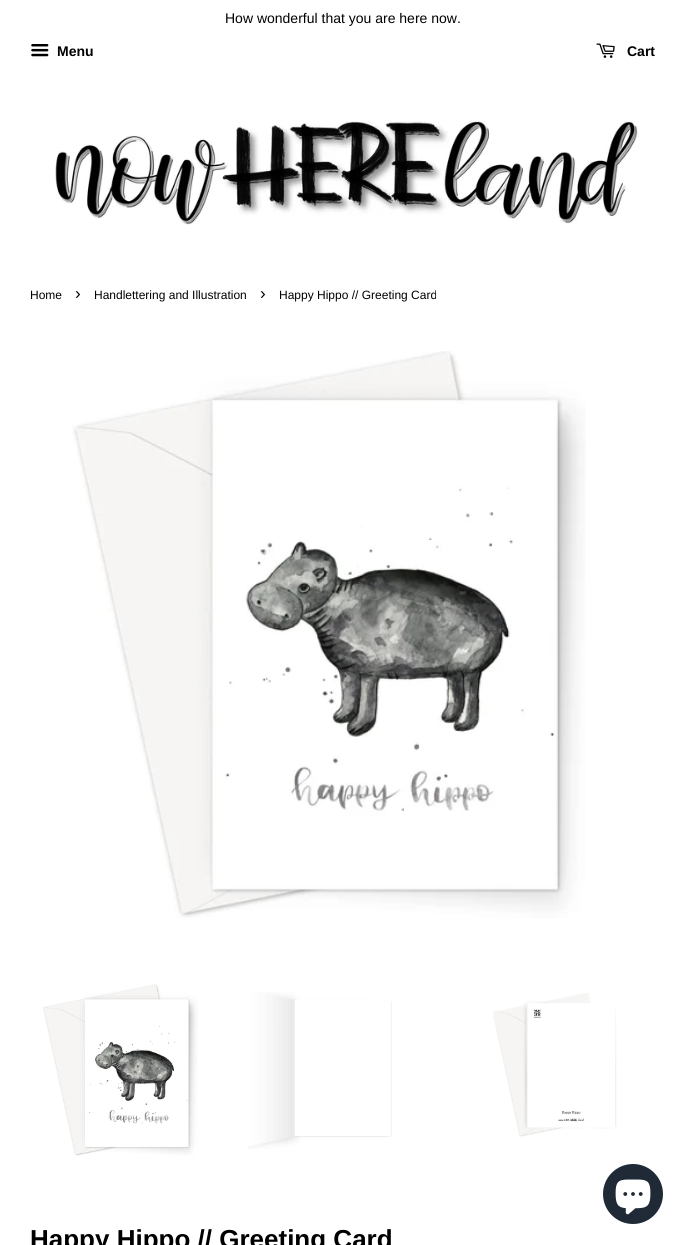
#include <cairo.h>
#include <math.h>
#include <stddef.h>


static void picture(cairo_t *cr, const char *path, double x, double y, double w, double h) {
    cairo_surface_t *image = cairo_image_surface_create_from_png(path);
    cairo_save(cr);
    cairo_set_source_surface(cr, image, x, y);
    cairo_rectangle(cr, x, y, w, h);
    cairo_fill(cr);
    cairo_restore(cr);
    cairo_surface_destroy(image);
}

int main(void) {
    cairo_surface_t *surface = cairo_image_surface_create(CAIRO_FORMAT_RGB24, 685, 1245);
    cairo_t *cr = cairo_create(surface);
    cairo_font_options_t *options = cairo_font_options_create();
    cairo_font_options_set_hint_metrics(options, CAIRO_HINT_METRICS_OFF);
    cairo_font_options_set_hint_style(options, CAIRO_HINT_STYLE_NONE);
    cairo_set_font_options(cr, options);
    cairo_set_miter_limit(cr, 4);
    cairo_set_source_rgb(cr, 1, 1, 1);
    cairo_paint(cr);
    cairo_select_font_face(cr, "Liberation Sans", CAIRO_FONT_SLANT_NORMAL, CAIRO_FONT_WEIGHT_NORMAL);
    cairo_set_font_size(cr, 14);
    cairo_set_source_rgb(cr, 0, 0, 0);
    cairo_move_to(cr, 225, 23);
    cairo_show_text(cr, "How wonderful that you are here now.");
    picture(cr, "img1.png", 31, 44, 18, 13);
    cairo_select_font_face(cr, "Liberation Sans", CAIRO_FONT_SLANT_NORMAL, CAIRO_FONT_WEIGHT_BOLD);
    cairo_move_to(cr, 57, 56);
    cairo_show_text(cr, "Menu");
    picture(cr, "img2.png", 596, 43, 19, 15);
    cairo_move_to(cr, 627, 56);
    cairo_show_text(cr, "Cart");
    picture(cr, "img3.png", 55, 121, 584, 104);
    cairo_select_font_face(cr, "Liberation Sans", CAIRO_FONT_SLANT_NORMAL, CAIRO_FONT_WEIGHT_NORMAL);
    cairo_set_font_size(cr, 12);
    cairo_move_to(cr, 30, 299);
    cairo_show_text(cr, "Home");
    cairo_set_font_size(cr, 17);
    cairo_move_to(cr, 75, 299);
    cairo_show_text(cr, "›");
    cairo_set_font_size(cr, 12);
    cairo_move_to(cr, 94, 299);
    cairo_show_text(cr, "Handlettering and Illustration");
    cairo_set_font_size(cr, 17);
    cairo_move_to(cr, 260, 299);
    cairo_show_text(cr, "›");
    cairo_set_font_size(cr, 12);
    cairo_move_to(cr, 279, 299);
    cairo_show_text(cr, "Happy Hippo // Greeting Card");
    picture(cr, "img4.png", 72, 351, 514, 567);
    picture(cr, "img5.png", 43, 984, 155, 172);
    picture(cr, "img6.png", 248, 992, 144, 157);
    picture(cr, "img7.png", 493, 993, 124, 144);
    cairo_select_font_face(cr, "Liberation Sans", CAIRO_FONT_SLANT_NORMAL, CAIRO_FONT_WEIGHT_BOLD);
    cairo_set_font_size(cr, 26);
    cairo_move_to(cr, 30, 1248);
    cairo_show_text(cr, "Happy Hippo // Greeting Card");
    cairo_set_source_rgb(cr, 0.125, 0.165, 0.212);
    cairo_new_path(cr);
    cairo_arc(cr, 633, 1194, 30, 0, 2 * M_PI);
    cairo_fill(cr);
    picture(cr, "img8.png", 615, 1179, 36, 36);
    cairo_surface_write_to_png(surface, "page.png");
    cairo_font_options_destroy(options);
    cairo_destroy(cr);
    cairo_surface_destroy(surface);
    return 0;
}
